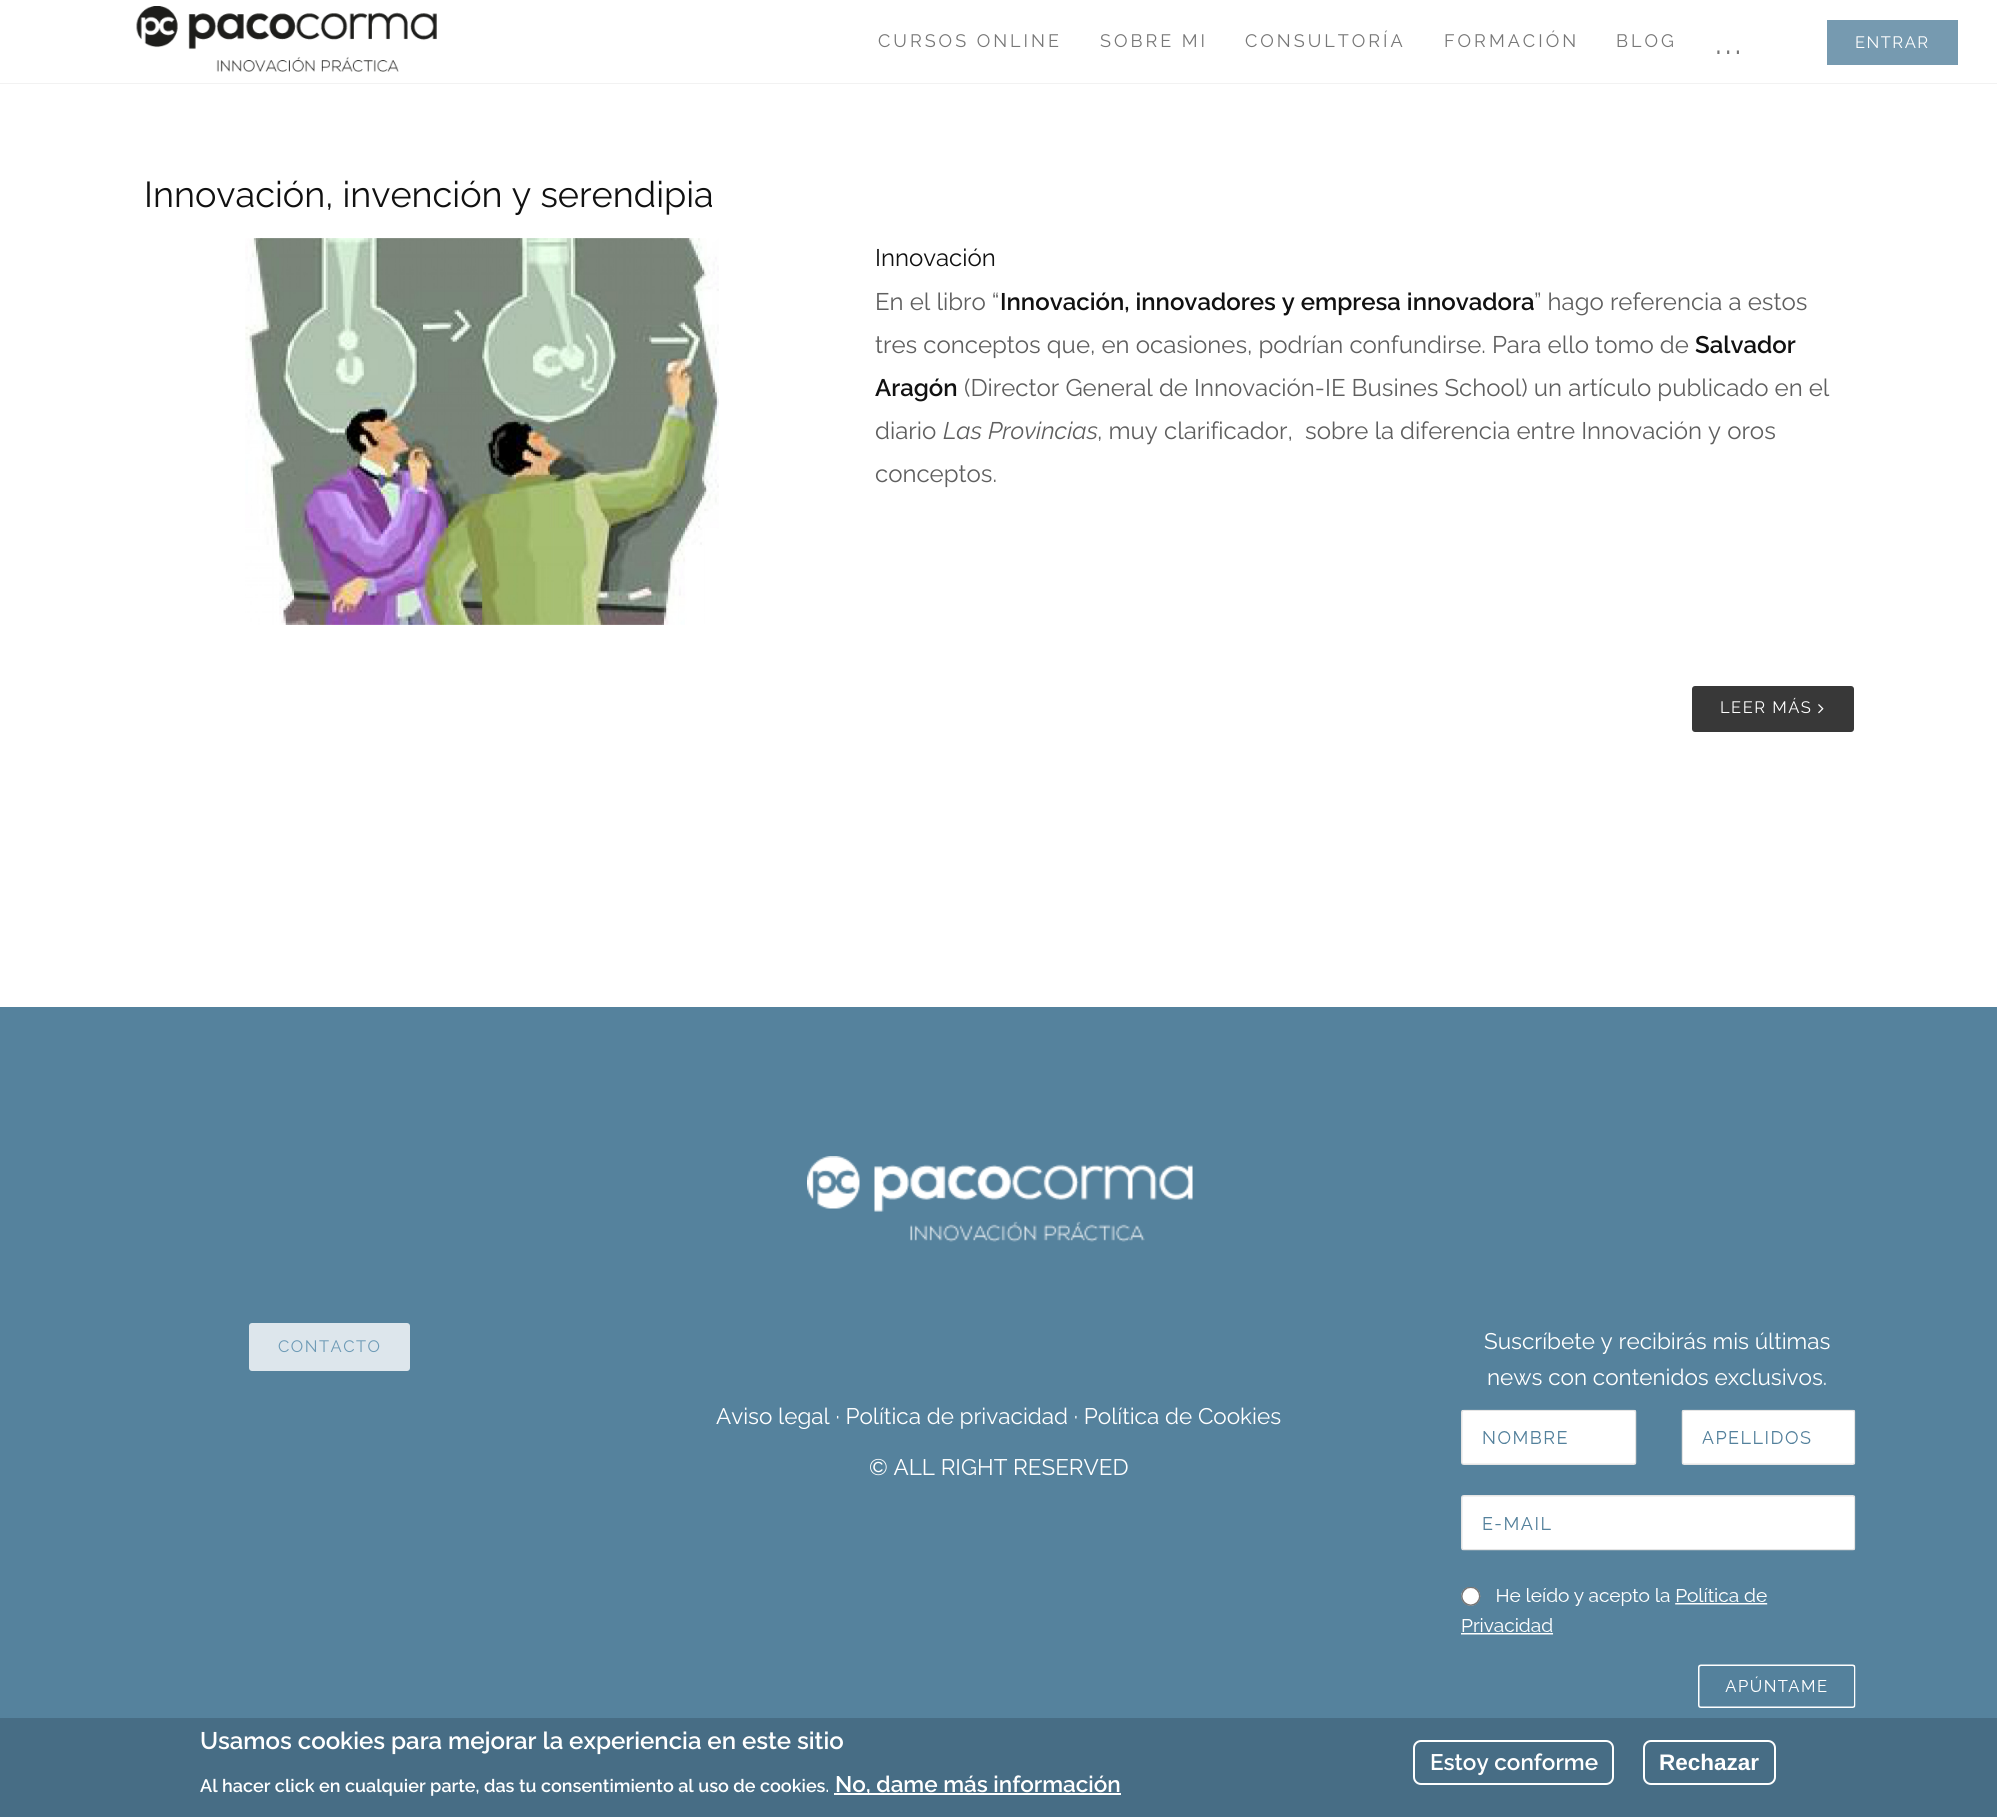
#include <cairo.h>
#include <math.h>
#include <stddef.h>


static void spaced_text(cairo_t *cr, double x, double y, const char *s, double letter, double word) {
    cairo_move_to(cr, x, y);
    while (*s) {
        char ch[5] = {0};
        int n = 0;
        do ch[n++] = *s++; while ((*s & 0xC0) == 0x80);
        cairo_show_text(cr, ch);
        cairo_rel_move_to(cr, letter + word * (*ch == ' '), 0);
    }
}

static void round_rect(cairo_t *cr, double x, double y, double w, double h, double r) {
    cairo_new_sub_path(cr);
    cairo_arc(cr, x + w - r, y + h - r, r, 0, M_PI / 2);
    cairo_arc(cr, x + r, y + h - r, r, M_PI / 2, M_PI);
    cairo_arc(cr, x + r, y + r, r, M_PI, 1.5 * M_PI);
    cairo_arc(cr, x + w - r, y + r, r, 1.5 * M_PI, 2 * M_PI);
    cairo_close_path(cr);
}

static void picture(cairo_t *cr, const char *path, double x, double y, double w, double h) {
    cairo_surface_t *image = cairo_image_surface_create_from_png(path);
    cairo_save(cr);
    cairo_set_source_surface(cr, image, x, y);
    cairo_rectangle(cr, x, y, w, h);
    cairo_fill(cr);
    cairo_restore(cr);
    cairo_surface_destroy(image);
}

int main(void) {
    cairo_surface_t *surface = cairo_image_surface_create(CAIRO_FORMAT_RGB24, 1997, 1817);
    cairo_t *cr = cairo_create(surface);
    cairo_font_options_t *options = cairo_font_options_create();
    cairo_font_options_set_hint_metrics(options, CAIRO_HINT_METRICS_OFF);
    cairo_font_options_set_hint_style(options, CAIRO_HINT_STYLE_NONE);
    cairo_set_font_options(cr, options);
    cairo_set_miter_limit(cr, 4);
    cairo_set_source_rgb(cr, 1, 1, 1);
    cairo_paint(cr);
    cairo_set_source_rgb(cr, 0.949, 0.949, 0.949);
    cairo_rectangle(cr, 0, 83, 1997, 1);
    cairo_fill(cr);
    picture(cr, "img1.png", 136, 6, 301, 66);
    cairo_select_font_face(cr, "Raleway", CAIRO_FONT_SLANT_NORMAL, CAIRO_FONT_WEIGHT_NORMAL);
    cairo_set_font_size(cr, 18);
    cairo_set_source_rgb(cr, 0.467, 0.467, 0.467);
    spaced_text(cr, 878, 47, "CURSOS ONLINE", 3, 0);
    spaced_text(cr, 1100, 47, "SOBRE MI", 3, 0);
    spaced_text(cr, 1245, 47, "CONSULTORÍA", 3, 0);
    spaced_text(cr, 1444, 47, "FORMACIÓN", 3, 0);
    spaced_text(cr, 1616, 47, "BLOG", 3, 0);
    cairo_set_source_rgb(cr, 0.463, 0.604, 0.69);
    cairo_rectangle(cr, 1827, 20, 131, 45);
    cairo_fill(cr);
    cairo_set_font_size(cr, 16.5);
    cairo_set_source_rgb(cr, 1, 1, 1);
    spaced_text(cr, 1855, 48, "ENTRAR", 1.5, 0);
    cairo_set_font_size(cr, 36);
    cairo_set_source_rgb(cr, 0.467, 0.467, 0.467);
    spaced_text(cr, 1715, 54, "...", 3, 0);
    cairo_set_source_rgb(cr, 0.067, 0.067, 0.067);
    cairo_move_to(cr, 144, 207);
    cairo_show_text(cr, "Innovación, invención y serendipia");
    picture(cr, "img2.png", 245, 238, 474, 387);
    cairo_set_font_size(cr, 24);
    cairo_move_to(cr, 875, 266);
    cairo_show_text(cr, "Innovación");
    cairo_set_source_rgb(cr, 0.373, 0.373, 0.373);
    cairo_move_to(cr, 875, 310);
    cairo_show_text(cr, "En el libro “");
    cairo_select_font_face(cr, "Raleway SemiBold", CAIRO_FONT_SLANT_NORMAL, CAIRO_FONT_WEIGHT_NORMAL);
    cairo_set_source_rgb(cr, 0.067, 0.067, 0.067);
    cairo_move_to(cr, 1000, 310);
    cairo_show_text(cr, "Innovación, innovadores y empresa innovadora");
    cairo_select_font_face(cr, "Raleway", CAIRO_FONT_SLANT_NORMAL, CAIRO_FONT_WEIGHT_NORMAL);
    cairo_set_source_rgb(cr, 0.373, 0.373, 0.373);
    cairo_move_to(cr, 1534, 310);
    cairo_show_text(cr, "” hago referencia a estos");
    cairo_move_to(cr, 875, 353);
    cairo_show_text(cr, "tres conceptos que, en ocasiones, podrían confundirse. Para ello tomo de");
    cairo_select_font_face(cr, "Raleway SemiBold", CAIRO_FONT_SLANT_NORMAL, CAIRO_FONT_WEIGHT_NORMAL);
    cairo_set_source_rgb(cr, 0.067, 0.067, 0.067);
    cairo_move_to(cr, 1695, 353);
    cairo_show_text(cr, "Salvador");
    cairo_move_to(cr, 875, 396);
    cairo_show_text(cr, "Aragón");
    cairo_select_font_face(cr, "Raleway", CAIRO_FONT_SLANT_NORMAL, CAIRO_FONT_WEIGHT_NORMAL);
    cairo_set_source_rgb(cr, 0.373, 0.373, 0.373);
    cairo_move_to(cr, 964, 396);
    cairo_show_text(cr, "(Director General de Innovación-IE Busines School) un artículo publicado en el");
    cairo_move_to(cr, 875, 439);
    cairo_show_text(cr, "diario");
    cairo_select_font_face(cr, "Raleway", CAIRO_FONT_SLANT_ITALIC, CAIRO_FONT_WEIGHT_NORMAL);
    cairo_move_to(cr, 943, 439);
    cairo_show_text(cr, "Las Provincias");
    cairo_select_font_face(cr, "Raleway", CAIRO_FONT_SLANT_NORMAL, CAIRO_FONT_WEIGHT_NORMAL);
    cairo_move_to(cr, 1097, 439);
    cairo_show_text(cr, ", muy clarificador,  sobre la diferencia entre Innovación y oros");
    cairo_move_to(cr, 875, 482);
    cairo_show_text(cr, "conceptos.");
    cairo_set_source_rgb(cr, 0.22, 0.22, 0.22);
    round_rect(cr, 1692, 686, 162, 46, 3);
    cairo_fill(cr);
    cairo_set_font_size(cr, 16.5);
    cairo_set_source_rgb(cr, 1, 1, 1);
    spaced_text(cr, 1720, 713, "LEER MÁS", 1.5, 0);
    picture(cr, "img3.png", 1818, 704, 6, 10);
    cairo_set_source_rgb(cr, 0.333, 0.51, 0.616);
    cairo_rectangle(cr, 0, 1007, 1997, 711);
    cairo_fill(cr);
    picture(cr, "img4.png", 807, 1156, 386, 86);
    cairo_set_source_rgb(cr, 0.867, 0.902, 0.922);
    round_rect(cr, 249, 1323, 161, 48, 3);
    cairo_fill(cr);
    cairo_set_source_rgb(cr, 0.431, 0.608, 0.714);
    spaced_text(cr, 278, 1352, "CONTACTO", 1.5, 0);
    cairo_set_font_size(cr, 22.5);
    cairo_set_source_rgb(cr, 1, 1, 1);
    cairo_move_to(cr, 1484, 1349);
    cairo_show_text(cr, "Suscríbete y recibirás mis últimas");
    cairo_move_to(cr, 1487, 1385);
    cairo_show_text(cr, "news con contenidos exclusivos.");
    picture(cr, "img5.png", 1461, 1409, 395, 299);
    cairo_move_to(cr, 716, 1424);
    cairo_show_text(cr, "Aviso legal · Política de privacidad · Política de Cookies");
    cairo_move_to(cr, 869, 1475);
    cairo_show_text(cr, "© ALL RIGHT RESERVED");
    cairo_set_source_rgb(cr, 0.278, 0.427, 0.522);
    cairo_rectangle(cr, 0, 1718, 1997, 99);
    cairo_fill(cr);
    cairo_select_font_face(cr, "Raleway SemiBold", CAIRO_FONT_SLANT_NORMAL, CAIRO_FONT_WEIGHT_NORMAL);
    cairo_set_font_size(cr, 24);
    cairo_set_source_rgb(cr, 1, 1, 1);
    cairo_move_to(cr, 200, 1749);
    cairo_show_text(cr, "Usamos cookies para mejorar la experiencia en este sitio");
    cairo_set_font_size(cr, 18);
    cairo_move_to(cr, 200, 1792);
    cairo_show_text(cr, "Al hacer click en cualquier parte, das tu consentimiento al uso de cookies.");
    cairo_rectangle(cr, 834, 1793, 287, 2);
    cairo_fill(cr);
    cairo_set_font_size(cr, 22.5);
    cairo_move_to(cr, 835, 1792);
    cairo_show_text(cr, "No, dame más información");
    round_rect(cr, 1414, 1741, 199, 43, 7);
    cairo_stroke(cr);
    cairo_move_to(cr, 1430, 1770);
    cairo_show_text(cr, "Estoy conforme");
    round_rect(cr, 1644, 1741, 131, 43, 7);
    cairo_stroke(cr);
    cairo_select_font_face(cr, "Liberation Sans", CAIRO_FONT_SLANT_NORMAL, CAIRO_FONT_WEIGHT_BOLD);
    cairo_move_to(cr, 1659, 1770);
    cairo_show_text(cr, "Rechazar");
    cairo_surface_write_to_png(surface, "page.png");
    cairo_font_options_destroy(options);
    cairo_destroy(cr);
    cairo_surface_destroy(surface);
    return 0;
}
